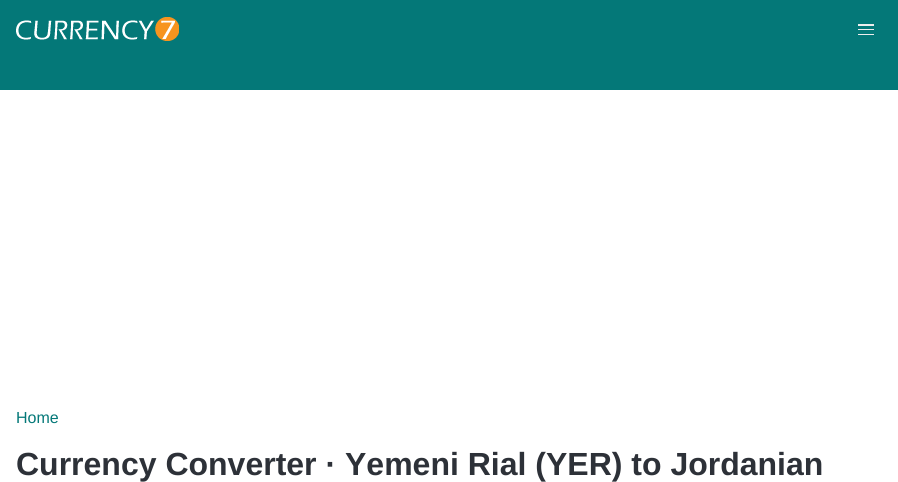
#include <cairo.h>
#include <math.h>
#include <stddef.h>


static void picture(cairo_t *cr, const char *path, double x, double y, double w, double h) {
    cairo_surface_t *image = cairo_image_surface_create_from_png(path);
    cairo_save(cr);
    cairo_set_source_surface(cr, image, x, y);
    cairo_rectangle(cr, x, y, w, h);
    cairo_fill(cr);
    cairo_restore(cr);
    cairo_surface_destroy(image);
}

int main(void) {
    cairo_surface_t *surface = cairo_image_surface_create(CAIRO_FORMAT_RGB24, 898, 482);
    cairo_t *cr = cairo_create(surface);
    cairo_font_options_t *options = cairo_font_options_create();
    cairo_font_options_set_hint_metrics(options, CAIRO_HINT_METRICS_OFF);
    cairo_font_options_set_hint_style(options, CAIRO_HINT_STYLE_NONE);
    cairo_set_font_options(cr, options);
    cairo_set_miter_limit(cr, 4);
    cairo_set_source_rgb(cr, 1, 1, 1);
    cairo_paint(cr);
    cairo_set_source_rgb(cr, 0.016, 0.471, 0.471);
    cairo_rectangle(cr, 0, 0, 898, 90);
    cairo_fill(cr);
    picture(cr, "img1.png", 16, 17, 163, 24);
    cairo_set_source_rgb(cr, 0.933, 0.933, 0.933);
    cairo_rectangle(cr, 858, 24, 16, 2);
    cairo_fill(cr);
    cairo_rectangle(cr, 858, 29, 16, 1);
    cairo_fill(cr);
    cairo_rectangle(cr, 858, 34, 16, 1);
    cairo_fill(cr);
    cairo_select_font_face(cr, "Liberation Sans", CAIRO_FONT_SLANT_NORMAL, CAIRO_FONT_WEIGHT_NORMAL);
    cairo_set_font_size(cr, 16);
    cairo_set_source_rgb(cr, 0.016, 0.471, 0.471);
    cairo_move_to(cr, 16, 423);
    cairo_show_text(cr, "Home");
    cairo_select_font_face(cr, "Liberation Sans", CAIRO_FONT_SLANT_NORMAL, CAIRO_FONT_WEIGHT_BOLD);
    cairo_set_font_size(cr, 32);
    cairo_set_source_rgb(cr, 0.176, 0.192, 0.22);
    cairo_move_to(cr, 16, 475);
    cairo_show_text(cr, "Currency Converter · Yemeni Rial (YER) to Jordanian");
    cairo_surface_write_to_png(surface, "page.png");
    cairo_font_options_destroy(options);
    cairo_destroy(cr);
    cairo_surface_destroy(surface);
    return 0;
}
